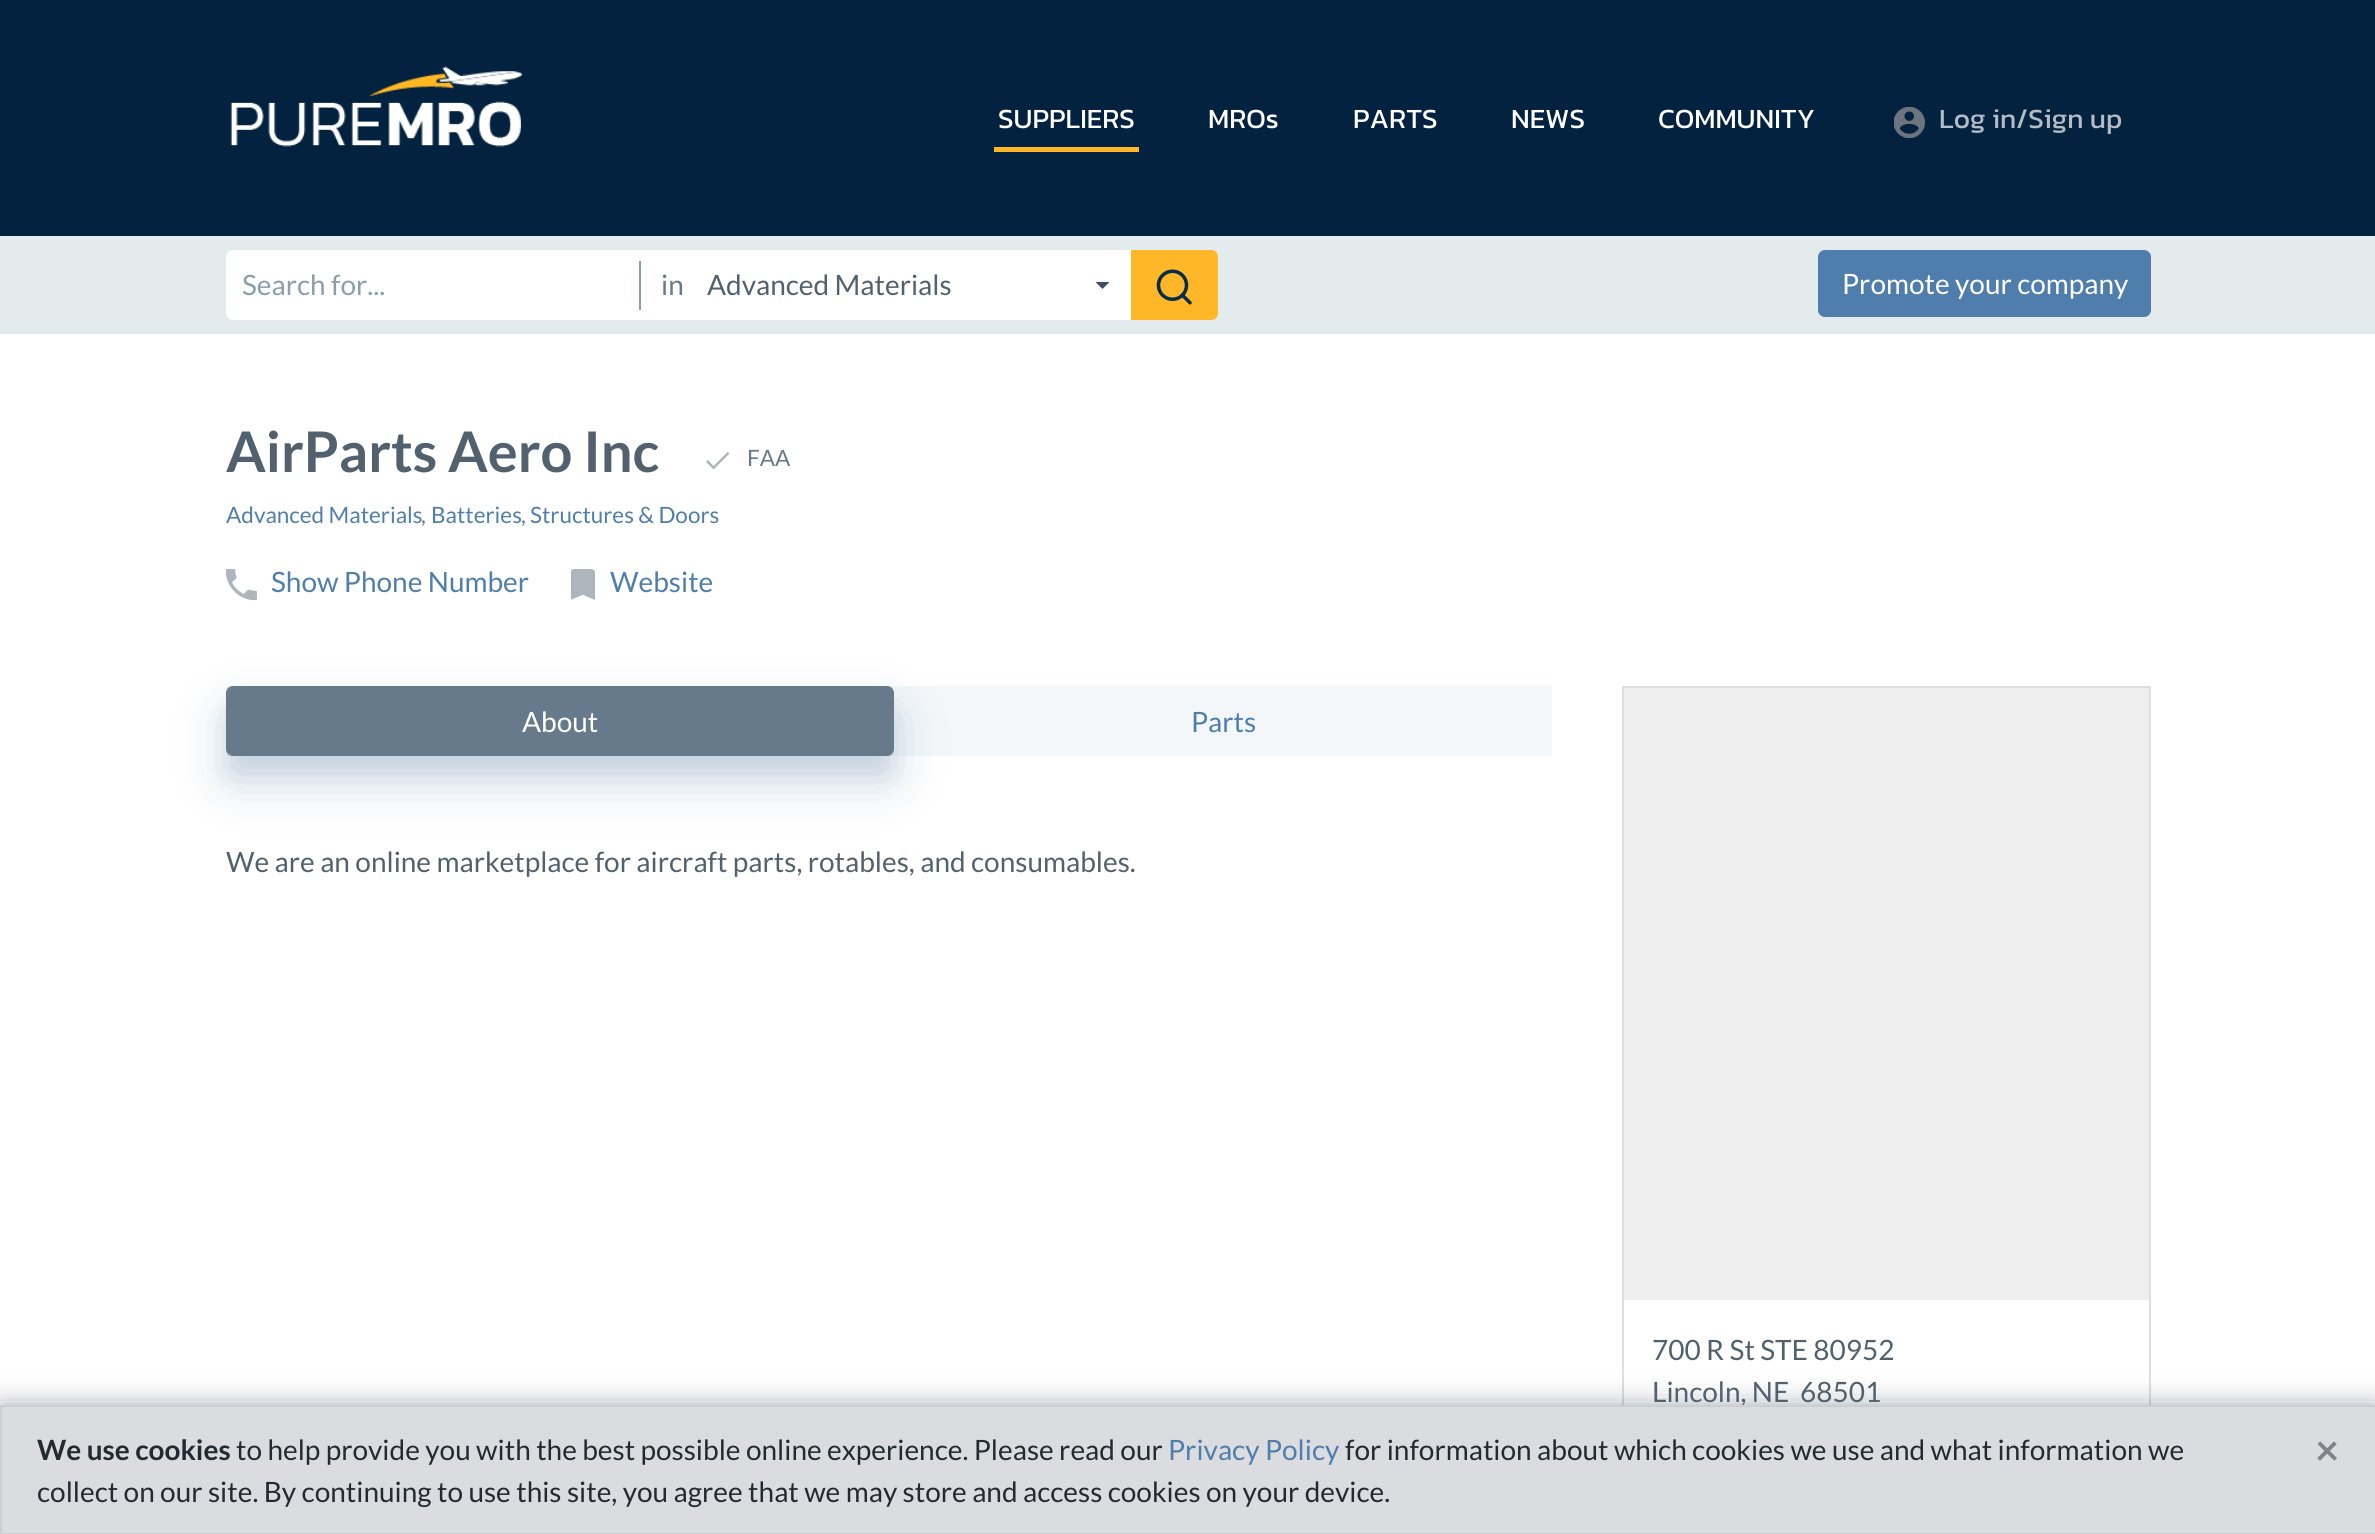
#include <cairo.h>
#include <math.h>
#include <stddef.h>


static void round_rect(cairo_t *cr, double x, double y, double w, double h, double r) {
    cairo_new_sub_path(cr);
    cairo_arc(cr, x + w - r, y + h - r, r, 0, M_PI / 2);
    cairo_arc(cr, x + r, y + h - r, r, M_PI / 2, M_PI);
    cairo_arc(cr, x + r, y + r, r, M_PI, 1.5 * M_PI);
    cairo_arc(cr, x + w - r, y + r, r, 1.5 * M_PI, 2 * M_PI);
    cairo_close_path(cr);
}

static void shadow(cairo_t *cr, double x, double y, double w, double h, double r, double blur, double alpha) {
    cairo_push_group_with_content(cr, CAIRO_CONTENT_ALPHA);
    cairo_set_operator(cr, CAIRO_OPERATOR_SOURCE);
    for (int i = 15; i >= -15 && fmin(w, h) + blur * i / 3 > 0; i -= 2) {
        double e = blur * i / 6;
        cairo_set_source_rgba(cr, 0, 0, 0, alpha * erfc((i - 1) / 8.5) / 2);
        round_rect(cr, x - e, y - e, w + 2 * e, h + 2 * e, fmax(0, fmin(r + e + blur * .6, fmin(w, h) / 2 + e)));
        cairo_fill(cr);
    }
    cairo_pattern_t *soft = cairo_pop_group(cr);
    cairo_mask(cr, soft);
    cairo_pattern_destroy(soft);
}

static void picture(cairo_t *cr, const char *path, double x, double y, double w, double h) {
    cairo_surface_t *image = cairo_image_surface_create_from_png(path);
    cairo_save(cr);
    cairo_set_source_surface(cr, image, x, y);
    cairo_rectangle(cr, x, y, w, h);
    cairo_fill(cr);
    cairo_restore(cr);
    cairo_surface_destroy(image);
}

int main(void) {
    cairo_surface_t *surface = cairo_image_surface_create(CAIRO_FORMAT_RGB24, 2375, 1534);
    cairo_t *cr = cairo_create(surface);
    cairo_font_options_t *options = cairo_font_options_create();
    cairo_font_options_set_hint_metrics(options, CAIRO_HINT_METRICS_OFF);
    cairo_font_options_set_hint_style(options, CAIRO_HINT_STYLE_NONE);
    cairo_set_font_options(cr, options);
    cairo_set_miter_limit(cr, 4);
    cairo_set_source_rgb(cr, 1, 1, 1);
    cairo_paint(cr);
    cairo_set_source_rgb(cr, 0.012, 0.133, 0.247);
    cairo_rectangle(cr, 0, 0, 2375, 236);
    cairo_fill(cr);
    picture(cr, "img1.png", 230, 66, 293, 81);
    cairo_select_font_face(cr, "Kanit", CAIRO_FONT_SLANT_NORMAL, CAIRO_FONT_WEIGHT_NORMAL);
    cairo_set_font_size(cr, 28);
    cairo_set_source_rgb(cr, 1, 1, 1);
    cairo_move_to(cr, 998, 128);
    cairo_show_text(cr, "SUPPLIERS");
    cairo_set_source_rgb(cr, 1, 0.718, 0.153);
    cairo_rectangle(cr, 994, 147, 145, 5);
    cairo_fill(cr);
    cairo_set_source_rgb(cr, 1, 1, 1);
    cairo_move_to(cr, 1208, 128);
    cairo_show_text(cr, "MROs");
    cairo_move_to(cr, 1353, 128);
    cairo_show_text(cr, "PARTS");
    cairo_move_to(cr, 1511, 128);
    cairo_show_text(cr, "NEWS");
    cairo_move_to(cr, 1658, 128);
    cairo_show_text(cr, "COMMUNITY");
    picture(cr, "img2.png", 1894, 107, 31, 31);
    cairo_set_source_rgb(cr, 0.702, 0.741, 0.773);
    cairo_move_to(cr, 1939, 128);
    cairo_show_text(cr, "Log in/Sign up");
    cairo_set_source_rgb(cr, 0.894, 0.918, 0.929);
    cairo_rectangle(cr, 0, 236, 2375, 98);
    cairo_fill(cr);
    cairo_set_source_rgb(cr, 1, 1, 1);
    cairo_new_path(cr);
    cairo_move_to(cr, 233, 251);
    cairo_line_to(cr, 638, 251);
    cairo_line_to(cr, 638, 319);
    cairo_line_to(cr, 233, 319);
    cairo_curve_to(cr, 229.5, 319, 227, 316.5, 227, 313);
    cairo_line_to(cr, 227, 257);
    cairo_curve_to(cr, 227, 253.5, 229.5, 251, 233, 251);
    cairo_close_path(cr);
    cairo_fill_preserve(cr);
    cairo_stroke(cr);
    cairo_select_font_face(cr, "Lato", CAIRO_FONT_SLANT_NORMAL, CAIRO_FONT_WEIGHT_NORMAL);
    cairo_set_source_rgb(cr, 0.545, 0.62, 0.682);
    cairo_move_to(cr, 242, 295);
    cairo_show_text(cr, "Search for...");
    cairo_set_source_rgb(cr, 1, 1, 1);
    cairo_rectangle(cr, 639, 250, 492, 70);
    cairo_fill(cr);
    cairo_set_source_rgb(cr, 0.545, 0.62, 0.682);
    cairo_rectangle(cr, 639, 261, 2, 49);
    cairo_fill(cr);
    cairo_set_source_rgb(cr, 0.404, 0.478, 0.545);
    cairo_move_to(cr, 661, 295);
    cairo_show_text(cr, "in");
    cairo_set_source_rgb(cr, 0.239, 0.31, 0.384);
    cairo_new_path(cr);
    cairo_move_to(cr, 1095.5, 282);
    cairo_line_to(cr, 1102.5, 289);
    cairo_line_to(cr, 1109.5, 282);
    cairo_close_path(cr);
    cairo_fill(cr);
    cairo_set_source_rgb(cr, 0.322, 0.38, 0.431);
    cairo_move_to(cr, 707, 295);
    cairo_show_text(cr, "Advanced Materials");
    cairo_set_source_rgb(cr, 1, 0.718, 0.153);
    cairo_new_path(cr);
    cairo_move_to(cr, 1132, 251);
    cairo_line_to(cr, 1211, 251);
    cairo_curve_to(cr, 1214.5, 251, 1217, 253.5, 1217, 257);
    cairo_line_to(cr, 1217, 313);
    cairo_curve_to(cr, 1217, 316.5, 1214.5, 319, 1211, 319);
    cairo_line_to(cr, 1132, 319);
    cairo_close_path(cr);
    cairo_fill_preserve(cr);
    cairo_stroke(cr);
    picture(cr, "img3.png", 1156, 269, 36, 36);
    cairo_set_source_rgb(cr, 0.314, 0.494, 0.675);
    round_rect(cr, 1819, 251, 331, 65, 6);
    cairo_fill_preserve(cr);
    cairo_stroke(cr);
    cairo_set_source_rgb(cr, 1, 1, 1);
    cairo_move_to(cr, 1842, 294);
    cairo_show_text(cr, "Promote your company");
    cairo_select_font_face(cr, "Lato", CAIRO_FONT_SLANT_NORMAL, CAIRO_FONT_WEIGHT_BOLD);
    cairo_set_font_size(cr, 56);
    cairo_set_source_rgb(cr, 0.322, 0.38, 0.431);
    cairo_move_to(cr, 226, 472);
    cairo_show_text(cr, "AirParts Aero Inc");
    cairo_set_source_rgb(cr, 0.678, 0.71, 0.741);
    cairo_new_path(cr);
    cairo_move_to(cr, 713.5, 466);
    cairo_line_to(cr, 708, 460);
    cairo_line_to(cr, 706, 462);
    cairo_line_to(cr, 713.5, 469.5);
    cairo_line_to(cr, 729.5, 453.5);
    cairo_line_to(cr, 727.5, 452);
    cairo_close_path(cr);
    cairo_fill(cr);
    cairo_select_font_face(cr, "Lato", CAIRO_FONT_SLANT_NORMAL, CAIRO_FONT_WEIGHT_NORMAL);
    cairo_set_font_size(cr, 22.5);
    cairo_set_source_rgb(cr, 0.404, 0.478, 0.545);
    cairo_move_to(cr, 747, 466);
    cairo_show_text(cr, "FAA");
    cairo_set_source_rgb(cr, 0.314, 0.494, 0.675);
    cairo_move_to(cr, 226, 523);
    cairo_show_text(cr, "Advanced Materials");
    cairo_set_source_rgb(cr, 0.404, 0.478, 0.545);
    cairo_move_to(cr, 421, 523);
    cairo_show_text(cr, ",");
    cairo_set_source_rgb(cr, 0.314, 0.494, 0.675);
    cairo_move_to(cr, 431, 523);
    cairo_show_text(cr, "Batteries");
    cairo_set_source_rgb(cr, 0.404, 0.478, 0.545);
    cairo_move_to(cr, 521, 523);
    cairo_show_text(cr, ",");
    cairo_set_source_rgb(cr, 0.314, 0.494, 0.675);
    cairo_move_to(cr, 530, 523);
    cairo_show_text(cr, "Structures & Doors");
    picture(cr, "img4.png", 226, 569, 31, 31);
    cairo_set_font_size(cr, 28);
    cairo_move_to(cr, 271, 592);
    cairo_show_text(cr, "Show Phone Number");
    picture(cr, "img5.png", 571, 569, 24, 31);
    cairo_move_to(cr, 610, 592);
    cairo_show_text(cr, "Website");
    cairo_set_source_rgb(cr, 0.953, 0.965, 0.973);
    cairo_rectangle(cr, 226, 686, 1326, 70);
    cairo_fill(cr);
    cairo_set_source_rgb(cr, 0, 0, 0);
    shadow(cr, 226, 704, 668, 70, 7, 9, 0.05);
    cairo_set_source_rgb(cr, 0.314, 0.494, 0.675);
    shadow(cr, 226, 711, 668, 70, 7, 24.5, 0.3);
    cairo_set_source_rgb(cr, 0.404, 0.478, 0.545);
    round_rect(cr, 226, 686, 668, 70, 7);
    cairo_fill(cr);
    cairo_set_source_rgb(cr, 1, 1, 1);
    cairo_move_to(cr, 522, 732);
    cairo_show_text(cr, "About");
    cairo_set_source_rgb(cr, 0.314, 0.494, 0.675);
    cairo_move_to(cr, 1191, 732);
    cairo_show_text(cr, "Parts");
    cairo_set_source_rgb(cr, 0.322, 0.38, 0.431);
    cairo_move_to(cr, 226, 872);
    cairo_show_text(cr, "We are an online marketplace for aircraft parts, rotables, and consumables.");
    cairo_rectangle(cr, 1623, 687, 527, 796);
    cairo_set_source_rgb(cr, 0.871, 0.871, 0.871);
    cairo_stroke(cr);
    cairo_set_source_rgb(cr, 0.937, 0.937, 0.937);
    cairo_rectangle(cr, 1624, 688, 525, 612);
    cairo_fill(cr);
    cairo_set_source_rgb(cr, 0.322, 0.38, 0.431);
    cairo_move_to(cr, 1652, 1360);
    cairo_show_text(cr, "700 R St STE 80952");
    cairo_move_to(cr, 1652, 1402);
    cairo_show_text(cr, "Lincoln, NE  68501");
    cairo_set_source_rgb(cr, 0.329, 0.38, 0.427);
    shadow(cr, 0, 1405, 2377, 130, 0, 14, 0.5);
    cairo_set_source_rgb(cr, 0.855, 0.863, 0.875);
    cairo_rectangle(cr, 1, 1406, 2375, 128);
    cairo_fill_preserve(cr);
    cairo_set_source_rgb(cr, 0.796, 0.812, 0.824);
    cairo_stroke(cr);
    cairo_select_font_face(cr, "Lato", CAIRO_FONT_SLANT_NORMAL, CAIRO_FONT_WEIGHT_BOLD);
    cairo_set_source_rgb(cr, 0.137, 0.169, 0.192);
    cairo_move_to(cr, 37, 1460);
    cairo_show_text(cr, "We use cookies");
    cairo_select_font_face(cr, "Lato", CAIRO_FONT_SLANT_NORMAL, CAIRO_FONT_WEIGHT_NORMAL);
    cairo_move_to(cr, 236, 1460);
    cairo_show_text(cr, "to help provide you with the best possible online experience. Please read our");
    cairo_set_source_rgb(cr, 0.314, 0.494, 0.675);
    cairo_move_to(cr, 1168, 1460);
    cairo_show_text(cr, "Privacy Policy");
    cairo_set_source_rgb(cr, 0.137, 0.169, 0.192);
    cairo_move_to(cr, 1345, 1460);
    cairo_show_text(cr, "for information about which cookies we use and what information we");
    cairo_select_font_face(cr, "Lato", CAIRO_FONT_SLANT_NORMAL, CAIRO_FONT_WEIGHT_BOLD);
    cairo_set_font_size(cr, 42);
    cairo_set_source_rgb(cr, 0.498, 0.518, 0.533);
    cairo_move_to(cr, 2315, 1465);
    cairo_show_text(cr, "×");
    cairo_select_font_face(cr, "Lato", CAIRO_FONT_SLANT_NORMAL, CAIRO_FONT_WEIGHT_NORMAL);
    cairo_set_font_size(cr, 28);
    cairo_set_source_rgb(cr, 0.137, 0.169, 0.192);
    cairo_move_to(cr, 37, 1502);
    cairo_show_text(cr, "collect on our site. By continuing to use this site, you agree that we may store and access cookies on your device.");
    cairo_surface_write_to_png(surface, "page.png");
    cairo_font_options_destroy(options);
    cairo_destroy(cr);
    cairo_surface_destroy(surface);
    return 0;
}
